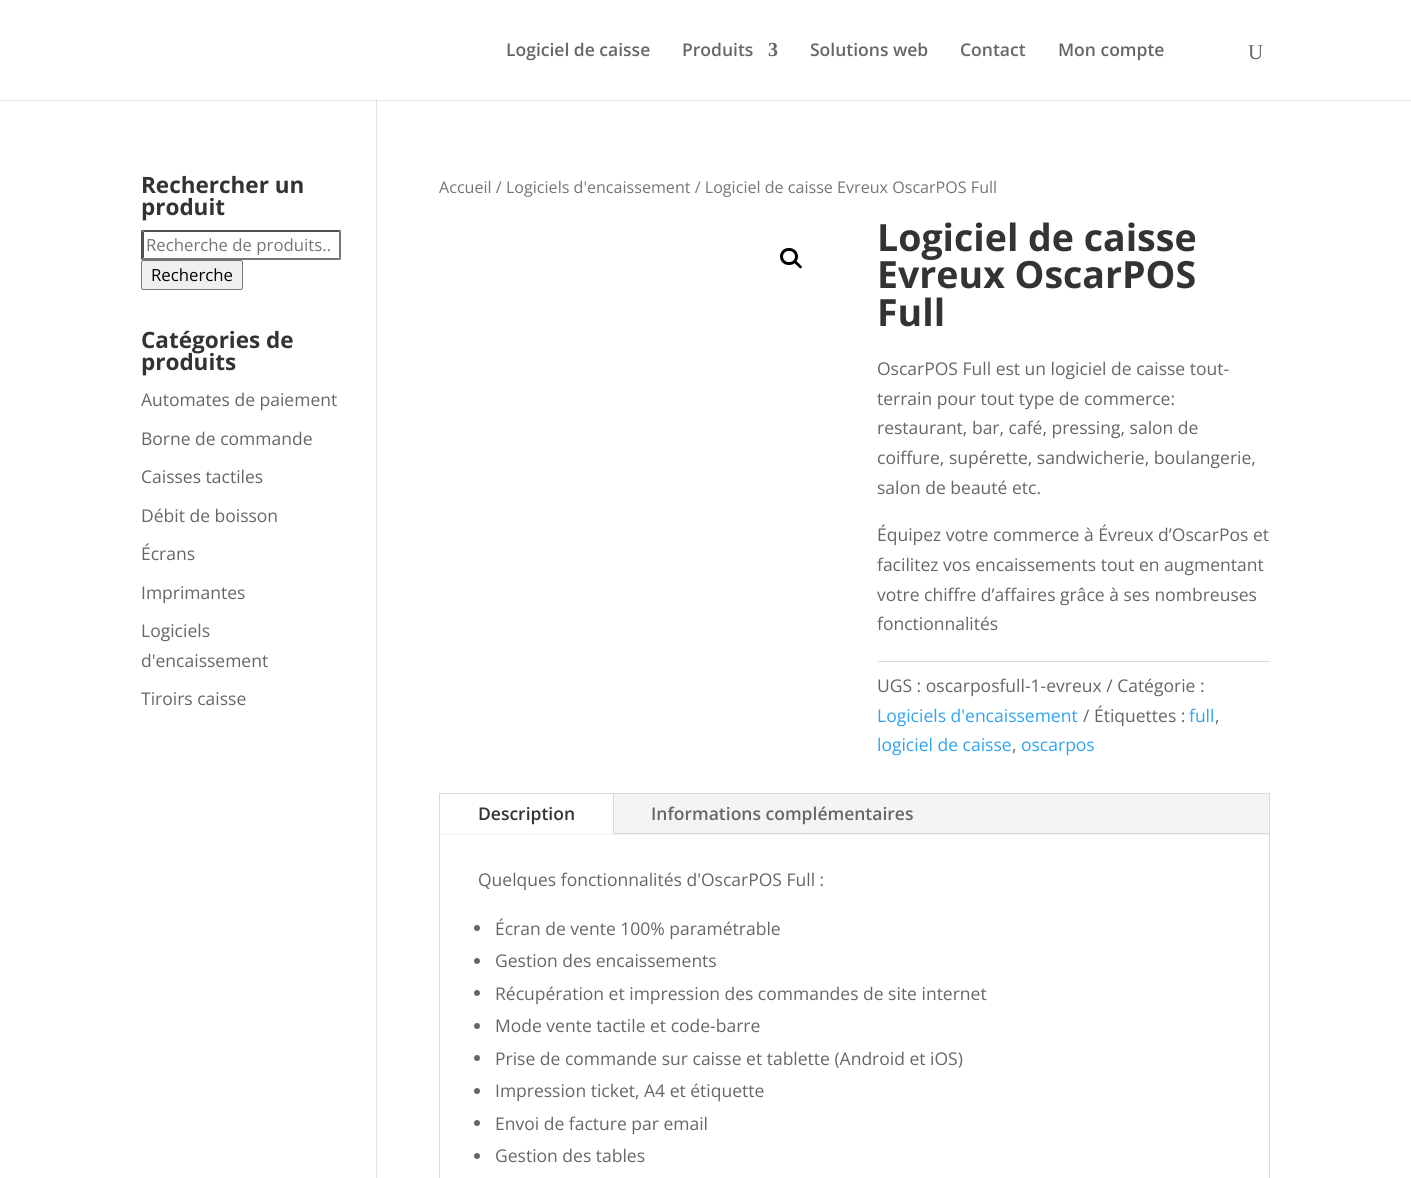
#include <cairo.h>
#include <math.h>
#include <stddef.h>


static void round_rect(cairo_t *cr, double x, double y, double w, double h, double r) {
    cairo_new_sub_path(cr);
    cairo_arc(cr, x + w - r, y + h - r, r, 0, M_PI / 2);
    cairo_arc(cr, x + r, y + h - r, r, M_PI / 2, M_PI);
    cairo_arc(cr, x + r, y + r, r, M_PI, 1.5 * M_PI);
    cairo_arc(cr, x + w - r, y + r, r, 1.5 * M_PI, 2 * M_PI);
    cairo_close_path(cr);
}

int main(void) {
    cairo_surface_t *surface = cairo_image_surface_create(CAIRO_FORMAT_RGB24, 1411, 1178);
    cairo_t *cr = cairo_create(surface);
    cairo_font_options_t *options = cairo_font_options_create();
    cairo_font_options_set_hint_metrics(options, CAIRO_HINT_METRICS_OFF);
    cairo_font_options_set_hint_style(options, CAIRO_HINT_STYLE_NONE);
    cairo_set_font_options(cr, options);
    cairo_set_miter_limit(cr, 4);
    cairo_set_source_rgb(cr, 1, 1, 1);
    cairo_paint(cr);
    cairo_set_source_rgb(cr, 0.902, 0.902, 0.902);
    cairo_rectangle(cr, 0, 100, 1411, 1);
    cairo_fill(cr);
    cairo_select_font_face(cr, "Open Sans SemiBold", CAIRO_FONT_SLANT_NORMAL, CAIRO_FONT_WEIGHT_NORMAL);
    cairo_set_font_size(cr, 17.5);
    cairo_set_source_rgb(cr, 0.4, 0.4, 0.4);
    cairo_move_to(cr, 506, 56);
    cairo_show_text(cr, "Logiciel de caisse");
    cairo_move_to(cr, 682, 56);
    cairo_show_text(cr, "Produits");
    cairo_select_font_face(cr, "Liberation Serif", CAIRO_FONT_SLANT_NORMAL, CAIRO_FONT_WEIGHT_BOLD);
    cairo_set_font_size(cr, 20);
    cairo_move_to(cr, 768, 56);
    cairo_show_text(cr, "3");
    cairo_select_font_face(cr, "Open Sans SemiBold", CAIRO_FONT_SLANT_NORMAL, CAIRO_FONT_WEIGHT_NORMAL);
    cairo_set_font_size(cr, 17.5);
    cairo_move_to(cr, 810, 56);
    cairo_show_text(cr, "Solutions web");
    cairo_move_to(cr, 960, 56);
    cairo_show_text(cr, "Contact");
    cairo_move_to(cr, 1058, 56);
    cairo_show_text(cr, "Mon compte");
    cairo_select_font_face(cr, "Liberation Serif", CAIRO_FONT_SLANT_NORMAL, CAIRO_FONT_WEIGHT_NORMAL);
    cairo_set_font_size(cr, 21);
    cairo_move_to(cr, 1248, 59);
    cairo_show_text(cr, "U");
    cairo_set_source_rgb(cr, 0.886, 0.886, 0.886);
    cairo_rectangle(cr, 376, 100, 1, 1078);
    cairo_fill(cr);
    cairo_set_source_rgb(cr, 0.796, 0.796, 0.796);
    cairo_rectangle(cr, 376, 100, 1, 1);
    cairo_fill(cr);
    cairo_select_font_face(cr, "Open Sans", CAIRO_FONT_SLANT_NORMAL, CAIRO_FONT_WEIGHT_BOLD);
    cairo_set_font_size(cr, 22.5);
    cairo_set_source_rgb(cr, 0.2, 0.2, 0.2);
    cairo_move_to(cr, 141, 193);
    cairo_show_text(cr, "Rechercher un");
    cairo_move_to(cr, 141, 215);
    cairo_show_text(cr, "produit");
    cairo_set_source_rgb(cr, 0.31, 0.31, 0.31);
    cairo_new_path(cr);
    cairo_move_to(cr, 141, 230);
    cairo_line_to(cr, 341, 230);
    cairo_line_to(cr, 339, 232);
    cairo_line_to(cr, 144, 232);
    cairo_close_path(cr);
    cairo_fill(cr);
    cairo_set_source_rgb(cr, 0.463, 0.463, 0.463);
    cairo_new_path(cr);
    cairo_move_to(cr, 341, 230);
    cairo_line_to(cr, 341, 260);
    cairo_line_to(cr, 339, 257.5);
    cairo_line_to(cr, 339, 232.5);
    cairo_close_path(cr);
    cairo_fill(cr);
    cairo_new_path(cr);
    cairo_move_to(cr, 341, 260);
    cairo_line_to(cr, 141, 260);
    cairo_line_to(cr, 144, 258);
    cairo_line_to(cr, 339, 258);
    cairo_close_path(cr);
    cairo_fill(cr);
    cairo_set_source_rgb(cr, 0.31, 0.31, 0.31);
    cairo_new_path(cr);
    cairo_move_to(cr, 141, 260);
    cairo_line_to(cr, 141, 230);
    cairo_line_to(cr, 144, 232.5);
    cairo_line_to(cr, 144, 257.5);
    cairo_close_path(cr);
    cairo_fill(cr);
    cairo_save(cr);
    cairo_rectangle(cr, 146, 234, 185, 22);
    cairo_clip(cr);
    cairo_select_font_face(cr, "Open Sans", CAIRO_FONT_SLANT_NORMAL, CAIRO_FONT_WEIGHT_NORMAL);
    cairo_set_font_size(cr, 16.75);
    cairo_set_source_rgb(cr, 0.459, 0.459, 0.459);
    cairo_move_to(cr, 146, 251);
    cairo_show_text(cr, "Recherche de produits…");
    cairo_restore(cr);
    cairo_set_source_rgb(cr, 0.937, 0.937, 0.937);
    round_rect(cr, 141.5, 260.5, 101, 29, 2);
    cairo_fill_preserve(cr);
    cairo_set_source_rgb(cr, 0.463, 0.463, 0.463);
    cairo_set_line_width(cr, 1);
    cairo_stroke(cr);
    cairo_select_font_face(cr, "Open Sans", CAIRO_FONT_SLANT_NORMAL, CAIRO_FONT_WEIGHT_NORMAL);
    cairo_set_font_size(cr, 16.75);
    cairo_set_source_rgb(cr, 0, 0, 0);
    cairo_move_to(cr, 151, 281);
    cairo_show_text(cr, "Recherche");
    cairo_select_font_face(cr, "Open Sans", CAIRO_FONT_SLANT_NORMAL, CAIRO_FONT_WEIGHT_BOLD);
    cairo_set_font_size(cr, 22.5);
    cairo_set_source_rgb(cr, 0.2, 0.2, 0.2);
    cairo_move_to(cr, 141, 348);
    cairo_show_text(cr, "Catégories de");
    cairo_move_to(cr, 141, 370);
    cairo_show_text(cr, "produits");
    cairo_select_font_face(cr, "Open Sans", CAIRO_FONT_SLANT_NORMAL, CAIRO_FONT_WEIGHT_NORMAL);
    cairo_set_font_size(cr, 17.5);
    cairo_set_source_rgb(cr, 0.4, 0.4, 0.4);
    cairo_move_to(cr, 141, 406);
    cairo_show_text(cr, "Automates de paiement");
    cairo_move_to(cr, 141, 445);
    cairo_show_text(cr, "Borne de commande");
    cairo_move_to(cr, 141, 483);
    cairo_show_text(cr, "Caisses tactiles");
    cairo_move_to(cr, 141, 522);
    cairo_show_text(cr, "Débit de boisson");
    cairo_move_to(cr, 141, 560);
    cairo_show_text(cr, "Écrans");
    cairo_move_to(cr, 141, 599);
    cairo_show_text(cr, "Imprimantes");
    cairo_move_to(cr, 141, 637);
    cairo_show_text(cr, "Logiciels");
    cairo_move_to(cr, 141, 667);
    cairo_show_text(cr, "d'encaissement");
    cairo_move_to(cr, 141, 705);
    cairo_show_text(cr, "Tiroirs caisse");
    cairo_set_font_size(cr, 16.1);
    cairo_set_source_rgb(cr, 0.459, 0.459, 0.459);
    cairo_move_to(cr, 439, 193);
    cairo_show_text(cr, "Accueil / Logiciels d'encaissement / Logiciel de caisse Evreux OscarPOS Full");
    round_rect(cr, 781.5, 249.5, 15, 14, 7);
    cairo_set_source_rgb(cr, 0, 0, 0);
    cairo_set_line_width(cr, 3);
    cairo_stroke(cr);
    cairo_new_path(cr);
    cairo_move_to(cr, 794.5, 261);
    cairo_curve_to(cr, 796, 259.5, 798, 263, 799, 263.5);
    cairo_curve_to(cr, 799.5, 264.5, 803, 266.5, 801.5, 268);
    cairo_curve_to(cr, 800, 269.5, 798, 266, 797, 265.5);
    cairo_curve_to(cr, 796, 264.5, 793, 262.5, 794.5, 261);
    cairo_close_path(cr);
    cairo_fill(cr);
    cairo_select_font_face(cr, "Open Sans", CAIRO_FONT_SLANT_NORMAL, CAIRO_FONT_WEIGHT_BOLD);
    cairo_set_font_size(cr, 37.5);
    cairo_set_source_rgb(cr, 0.2, 0.2, 0.2);
    cairo_move_to(cr, 877, 251);
    cairo_show_text(cr, "Logiciel de caisse");
    cairo_move_to(cr, 877, 288);
    cairo_show_text(cr, "Evreux OscarPOS");
    cairo_move_to(cr, 877, 326);
    cairo_show_text(cr, "Full");
    cairo_select_font_face(cr, "Open Sans", CAIRO_FONT_SLANT_NORMAL, CAIRO_FONT_WEIGHT_NORMAL);
    cairo_set_font_size(cr, 17.5);
    cairo_set_source_rgb(cr, 0.4, 0.4, 0.4);
    cairo_move_to(cr, 877, 375);
    cairo_show_text(cr, "OscarPOS Full est un logiciel de caisse tout-");
    cairo_move_to(cr, 877, 405);
    cairo_show_text(cr, "terrain pour tout type de commerce:");
    cairo_move_to(cr, 877, 434);
    cairo_show_text(cr, "restaurant, bar, café, pressing, salon de");
    cairo_move_to(cr, 877, 464);
    cairo_show_text(cr, "coiffure, supérette, sandwicherie, boulangerie,");
    cairo_move_to(cr, 877, 494);
    cairo_show_text(cr, "salon de beauté etc.");
    cairo_move_to(cr, 877, 541);
    cairo_show_text(cr, "Équipez votre commerce à Évreux d’OscarPos et");
    cairo_move_to(cr, 877, 571);
    cairo_show_text(cr, "facilitez vos encaissements tout en augmentant");
    cairo_move_to(cr, 877, 601);
    cairo_show_text(cr, "votre chiffre d’affaires grâce à ses nombreuses");
    cairo_move_to(cr, 877, 630);
    cairo_show_text(cr, "fonctionnalités");
    cairo_set_source_rgb(cr, 0.855, 0.855, 0.855);
    cairo_rectangle(cr, 878, 661, 392, 1);
    cairo_fill(cr);
    cairo_set_source_rgb(cr, 0.4, 0.4, 0.4);
    cairo_move_to(cr, 877, 692);
    cairo_show_text(cr, "UGS : oscarposfull-1-evreux / Catégorie :");
    cairo_set_source_rgb(cr, 0.18, 0.639, 0.949);
    cairo_move_to(cr, 877, 722);
    cairo_show_text(cr, "Logiciels d'encaissement");
    cairo_set_source_rgb(cr, 0.4, 0.4, 0.4);
    cairo_move_to(cr, 1083, 722);
    cairo_show_text(cr, "/ Étiquettes :");
    cairo_set_source_rgb(cr, 0.18, 0.639, 0.949);
    cairo_move_to(cr, 1189, 722);
    cairo_show_text(cr, "full");
    cairo_set_source_rgb(cr, 0.4, 0.4, 0.4);
    cairo_move_to(cr, 1215, 722);
    cairo_show_text(cr, ",");
    cairo_set_source_rgb(cr, 0.18, 0.639, 0.949);
    cairo_move_to(cr, 877, 751);
    cairo_show_text(cr, "logiciel de caisse");
    cairo_set_source_rgb(cr, 0.4, 0.4, 0.4);
    cairo_move_to(cr, 1012, 751);
    cairo_show_text(cr, ",");
    cairo_set_source_rgb(cr, 0.18, 0.639, 0.949);
    cairo_move_to(cr, 1021, 751);
    cairo_show_text(cr, "oscarpos");
    cairo_rectangle(cr, 439.5, 793.5, 830, 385);
    cairo_set_source_rgb(cr, 0.851, 0.851, 0.851);
    cairo_set_line_width(cr, 1);
    cairo_stroke(cr);
    cairo_set_source_rgb(cr, 0.957, 0.957, 0.957);
    cairo_rectangle(cr, 440, 794, 829, 41);
    cairo_fill(cr);
    cairo_set_source_rgb(cr, 1, 1, 1);
    cairo_rectangle(cr, 440, 794, 173, 40);
    cairo_fill(cr);
    cairo_set_source_rgb(cr, 0.851, 0.851, 0.851);
    cairo_rectangle(cr, 613, 794, 1, 40);
    cairo_fill(cr);
    cairo_select_font_face(cr, "Open Sans SemiBold", CAIRO_FONT_SLANT_NORMAL, CAIRO_FONT_WEIGHT_NORMAL);
    cairo_set_source_rgb(cr, 0.2, 0.2, 0.2);
    cairo_move_to(cr, 478, 820);
    cairo_show_text(cr, "Description");
    cairo_set_source_rgb(cr, 0.4, 0.4, 0.4);
    cairo_move_to(cr, 651, 820);
    cairo_show_text(cr, "Informations complémentaires");
    cairo_set_source_rgb(cr, 0.851, 0.851, 0.851);
    cairo_rectangle(cr, 614, 833, 655, 1);
    cairo_fill(cr);
    cairo_select_font_face(cr, "Open Sans", CAIRO_FONT_SLANT_NORMAL, CAIRO_FONT_WEIGHT_NORMAL);
    cairo_set_source_rgb(cr, 0.4, 0.4, 0.4);
    cairo_move_to(cr, 478, 886);
    cairo_show_text(cr, "Quelques fonctionnalités d'OscarPOS Full :");
    cairo_new_path(cr);
    cairo_arc(cr, 477, 928, 3, 0, 2 * M_PI);
    cairo_fill(cr);
    cairo_move_to(cr, 495, 935);
    cairo_show_text(cr, "Écran de vente 100% paramétrable");
    cairo_new_path(cr);
    cairo_arc(cr, 477, 961, 3, 0, 2 * M_PI);
    cairo_fill(cr);
    cairo_move_to(cr, 495, 967);
    cairo_show_text(cr, "Gestion des encaissements");
    cairo_new_path(cr);
    cairo_arc(cr, 477, 993, 3, 0, 2 * M_PI);
    cairo_fill(cr);
    cairo_move_to(cr, 495, 1000);
    cairo_show_text(cr, "Récupération et impression des commandes de site internet");
    cairo_new_path(cr);
    cairo_arc(cr, 477, 1026, 3, 0, 2 * M_PI);
    cairo_fill(cr);
    cairo_move_to(cr, 495, 1032);
    cairo_show_text(cr, "Mode vente tactile et code-barre");
    cairo_new_path(cr);
    cairo_arc(cr, 477, 1058, 3, 0, 2 * M_PI);
    cairo_fill(cr);
    cairo_move_to(cr, 495, 1065);
    cairo_show_text(cr, "Prise de commande sur caisse et tablette (Android et iOS)");
    cairo_new_path(cr);
    cairo_arc(cr, 477, 1091, 3, 0, 2 * M_PI);
    cairo_fill(cr);
    cairo_move_to(cr, 495, 1097);
    cairo_show_text(cr, "Impression ticket, A4 et étiquette");
    cairo_new_path(cr);
    cairo_arc(cr, 477, 1123, 3, 0, 2 * M_PI);
    cairo_fill(cr);
    cairo_move_to(cr, 495, 1130);
    cairo_show_text(cr, "Envoi de facture par email");
    cairo_new_path(cr);
    cairo_arc(cr, 477, 1156, 3, 0, 2 * M_PI);
    cairo_fill(cr);
    cairo_move_to(cr, 495, 1162);
    cairo_show_text(cr, "Gestion des tables");
    cairo_surface_write_to_png(surface, "page.png");
    cairo_font_options_destroy(options);
    cairo_destroy(cr);
    cairo_surface_destroy(surface);
    return 0;
}
